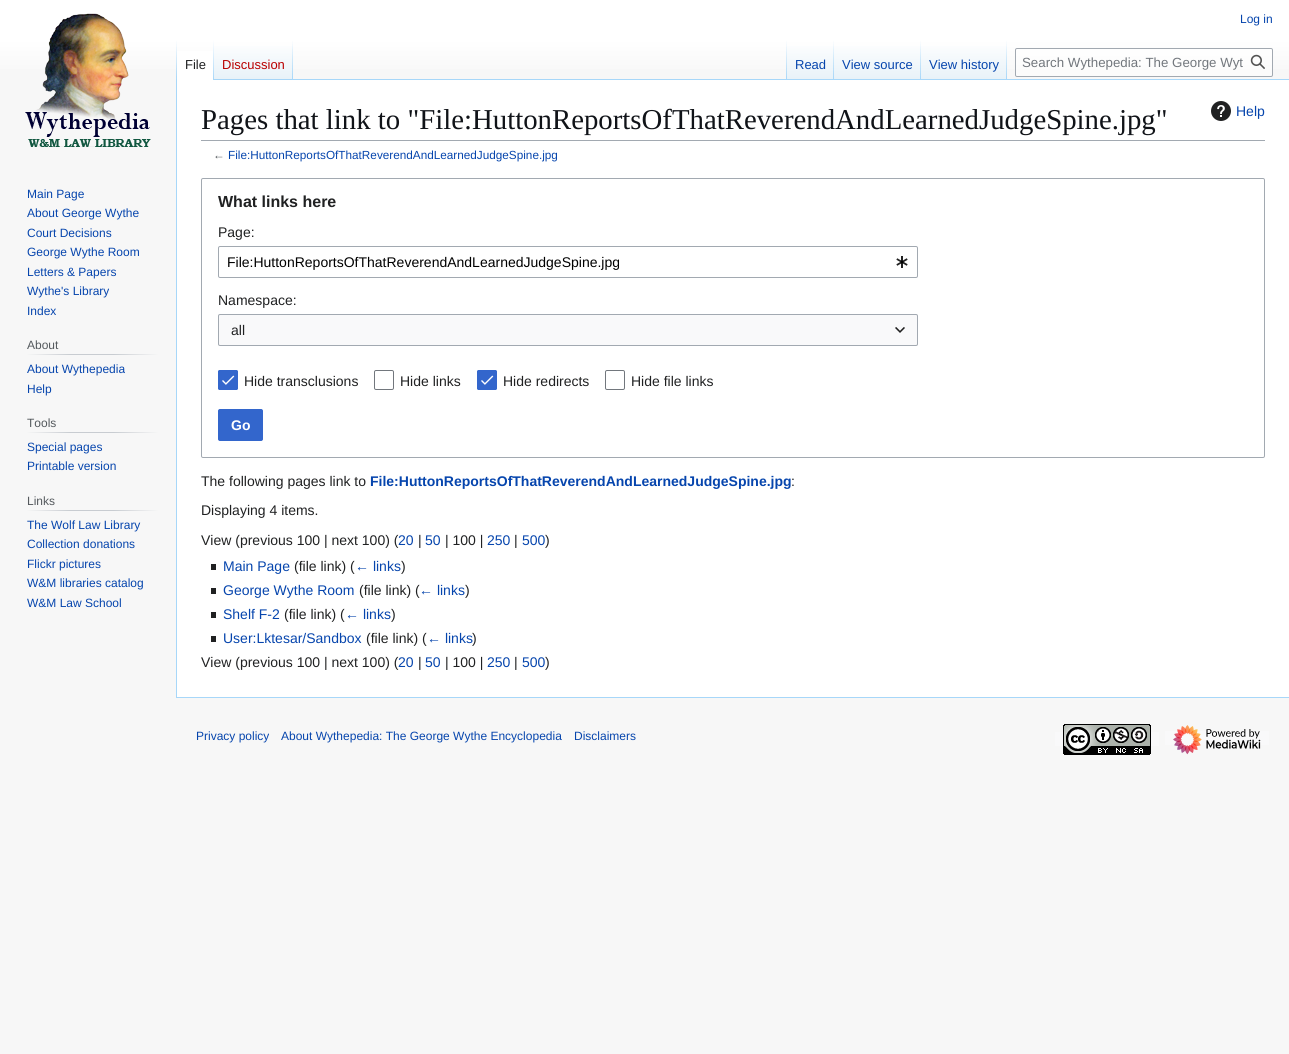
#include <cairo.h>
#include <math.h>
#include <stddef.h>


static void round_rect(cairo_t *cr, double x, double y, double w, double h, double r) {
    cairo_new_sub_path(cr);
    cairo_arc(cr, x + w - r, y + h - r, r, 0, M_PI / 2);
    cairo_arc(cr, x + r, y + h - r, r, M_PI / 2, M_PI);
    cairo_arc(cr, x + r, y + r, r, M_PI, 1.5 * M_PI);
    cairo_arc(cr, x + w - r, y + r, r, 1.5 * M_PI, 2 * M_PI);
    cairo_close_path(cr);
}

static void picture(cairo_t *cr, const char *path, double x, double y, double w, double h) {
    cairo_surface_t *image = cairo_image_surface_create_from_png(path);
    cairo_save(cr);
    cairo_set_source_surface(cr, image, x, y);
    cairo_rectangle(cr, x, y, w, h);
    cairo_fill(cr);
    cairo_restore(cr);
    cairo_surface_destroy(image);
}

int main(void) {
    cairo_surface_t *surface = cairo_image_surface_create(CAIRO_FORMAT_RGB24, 1289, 1054);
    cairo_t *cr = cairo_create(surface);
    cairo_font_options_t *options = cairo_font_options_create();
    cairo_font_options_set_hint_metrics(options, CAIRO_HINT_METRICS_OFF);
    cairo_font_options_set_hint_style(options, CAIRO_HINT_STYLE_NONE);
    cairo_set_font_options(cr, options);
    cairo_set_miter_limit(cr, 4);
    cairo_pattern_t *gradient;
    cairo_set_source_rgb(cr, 0.965, 0.965, 0.965);
    cairo_paint(cr);
    gradient = cairo_pattern_create_linear(645, 0, 645, 80);
    cairo_pattern_add_color_stop_rgba(gradient, 0.5, 1, 1, 1, 1);
    cairo_pattern_add_color_stop_rgba(gradient, 1, 0.965, 0.965, 0.965, 1);
    cairo_set_source(cr, gradient);
    cairo_pattern_destroy(gradient);
    cairo_rectangle(cr, 0, 0, 1289, 69);
    cairo_fill(cr);
    cairo_select_font_face(cr, "Liberation Sans", CAIRO_FONT_SLANT_NORMAL, CAIRO_FONT_WEIGHT_NORMAL);
    cairo_set_font_size(cr, 12);
    cairo_set_source_rgb(cr, 0.024, 0.271, 0.678);
    cairo_move_to(cr, 1240, 23);
    cairo_show_text(cr, "Log in");
    cairo_set_source_rgb(cr, 0.655, 0.843, 0.976);
    cairo_rectangle(cr, 176, 697, 1113, 1);
    cairo_fill(cr);
    cairo_rectangle(cr, 176, 79, 1, 619);
    cairo_fill(cr);
    gradient = cairo_pattern_create_linear(177, 40, 177, 80);
    cairo_pattern_add_color_stop_rgba(gradient, 0, 0.655, 0.843, 0.976, 0);
    cairo_pattern_add_color_stop_rgba(gradient, 1, 0.655, 0.843, 0.976, 1);
    cairo_set_source(cr, gradient);
    cairo_pattern_destroy(gradient);
    cairo_rectangle(cr, 176, 40, 1, 40);
    cairo_fill(cr);
    cairo_set_source_rgb(cr, 1, 1, 1);
    cairo_rectangle(cr, 177, 51, 36, 29);
    cairo_fill(cr);
    gradient = cairo_pattern_create_linear(214, 40, 214, 80);
    cairo_pattern_add_color_stop_rgba(gradient, 0, 1, 1, 1, 1);
    cairo_pattern_add_color_stop_rgba(gradient, 1, 0.655, 0.843, 0.976, 1);
    cairo_set_source(cr, gradient);
    cairo_pattern_destroy(gradient);
    cairo_rectangle(cr, 213, 40, 1, 40);
    cairo_fill(cr);
    cairo_set_font_size(cr, 13);
    cairo_set_source_rgb(cr, 0.125, 0.129, 0.133);
    cairo_move_to(cr, 185, 69);
    cairo_show_text(cr, "File");
    gradient = cairo_pattern_create_linear(254, 80, 254, 40);
    cairo_pattern_add_color_stop_rgba(gradient, 0, 0.467, 0.757, 0.965, 1);
    cairo_pattern_add_color_stop_rgba(gradient, 0.03, 0.91, 0.949, 0.973, 1);
    cairo_pattern_add_color_stop_rgba(gradient, 1, 1, 1, 1, 1);
    cairo_set_source(cr, gradient);
    cairo_pattern_destroy(gradient);
    cairo_rectangle(cr, 214, 46, 79, 34);
    cairo_fill(cr);
    gradient = cairo_pattern_create_linear(293, 40, 293, 80);
    cairo_pattern_add_color_stop_rgba(gradient, 0, 0.655, 0.843, 0.976, 0);
    cairo_pattern_add_color_stop_rgba(gradient, 1, 0.655, 0.843, 0.976, 1);
    cairo_set_source(cr, gradient);
    cairo_pattern_destroy(gradient);
    cairo_rectangle(cr, 292, 40, 1, 40);
    cairo_fill(cr);
    cairo_set_source_rgb(cr, 0.729, 0, 0);
    cairo_move_to(cr, 222, 69);
    cairo_show_text(cr, "Discussion");
    cairo_set_source_rgb(cr, 0.655, 0.843, 0.976);
    cairo_rectangle(cr, 293, 79, 996, 1);
    cairo_fill(cr);
    gradient = cairo_pattern_create_linear(787, 40, 787, 80);
    cairo_pattern_add_color_stop_rgba(gradient, 0, 0.655, 0.843, 0.976, 0);
    cairo_pattern_add_color_stop_rgba(gradient, 1, 0.655, 0.843, 0.976, 1);
    cairo_set_source(cr, gradient);
    cairo_pattern_destroy(gradient);
    cairo_rectangle(cr, 786, 40, 1, 40);
    cairo_fill(cr);
    gradient = cairo_pattern_create_linear(811, 80, 811, 40);
    cairo_pattern_add_color_stop_rgba(gradient, 0, 0.467, 0.757, 0.965, 1);
    cairo_pattern_add_color_stop_rgba(gradient, 0.03, 0.91, 0.949, 0.973, 1);
    cairo_pattern_add_color_stop_rgba(gradient, 1, 1, 1, 1, 1);
    cairo_set_source(cr, gradient);
    cairo_pattern_destroy(gradient);
    cairo_rectangle(cr, 787, 46, 47, 33);
    cairo_fill(cr);
    gradient = cairo_pattern_create_linear(834, 40, 834, 80);
    cairo_pattern_add_color_stop_rgba(gradient, 0, 0.655, 0.843, 0.976, 0);
    cairo_pattern_add_color_stop_rgba(gradient, 1, 0.655, 0.843, 0.976, 1);
    cairo_set_source(cr, gradient);
    cairo_pattern_destroy(gradient);
    cairo_rectangle(cr, 833, 40, 1, 40);
    cairo_fill(cr);
    cairo_set_source_rgb(cr, 0.024, 0.271, 0.678);
    cairo_move_to(cr, 795, 69);
    cairo_show_text(cr, "Read");
    gradient = cairo_pattern_create_linear(878, 80, 878, 40);
    cairo_pattern_add_color_stop_rgba(gradient, 0, 0.467, 0.757, 0.965, 1);
    cairo_pattern_add_color_stop_rgba(gradient, 0.03, 0.91, 0.949, 0.973, 1);
    cairo_pattern_add_color_stop_rgba(gradient, 1, 1, 1, 1, 1);
    cairo_set_source(cr, gradient);
    cairo_pattern_destroy(gradient);
    cairo_rectangle(cr, 834, 46, 87, 33);
    cairo_fill(cr);
    gradient = cairo_pattern_create_linear(921, 40, 921, 80);
    cairo_pattern_add_color_stop_rgba(gradient, 0, 0.655, 0.843, 0.976, 0);
    cairo_pattern_add_color_stop_rgba(gradient, 1, 0.655, 0.843, 0.976, 1);
    cairo_set_source(cr, gradient);
    cairo_pattern_destroy(gradient);
    cairo_rectangle(cr, 920, 40, 1, 40);
    cairo_fill(cr);
    cairo_set_source_rgb(cr, 0.024, 0.271, 0.678);
    cairo_move_to(cr, 842, 69);
    cairo_show_text(cr, "View source");
    gradient = cairo_pattern_create_linear(964, 80, 964, 40);
    cairo_pattern_add_color_stop_rgba(gradient, 0, 0.467, 0.757, 0.965, 1);
    cairo_pattern_add_color_stop_rgba(gradient, 0.03, 0.91, 0.949, 0.973, 1);
    cairo_pattern_add_color_stop_rgba(gradient, 1, 1, 1, 1, 1);
    cairo_set_source(cr, gradient);
    cairo_pattern_destroy(gradient);
    cairo_rectangle(cr, 921, 46, 86, 33);
    cairo_fill(cr);
    gradient = cairo_pattern_create_linear(1007, 40, 1007, 80);
    cairo_pattern_add_color_stop_rgba(gradient, 0, 0.655, 0.843, 0.976, 0);
    cairo_pattern_add_color_stop_rgba(gradient, 1, 0.655, 0.843, 0.976, 1);
    cairo_set_source(cr, gradient);
    cairo_pattern_destroy(gradient);
    cairo_rectangle(cr, 1006, 40, 1, 40);
    cairo_fill(cr);
    cairo_set_source_rgb(cr, 0.024, 0.271, 0.678);
    cairo_move_to(cr, 929, 69);
    cairo_show_text(cr, "View history");
    cairo_set_source_rgba(cr, 1, 1, 1, 0.5);
    round_rect(cr, 1015.5, 48.5, 257, 28, 1.5);
    cairo_fill_preserve(cr);
    cairo_set_source_rgb(cr, 0.635, 0.663, 0.694);
    cairo_set_line_width(cr, 1);
    cairo_stroke(cr);
    cairo_set_font_size(cr, 13.3);
    cairo_set_source_rgb(cr, 0.447, 0.467, 0.49);
    cairo_move_to(cr, 1022, 67);
    cairo_show_text(cr, "Search Wythepedia: The George Wyt");
    picture(cr, "img1.png", 1250, 54, 15, 15);
    picture(cr, "img2.png", 25, 13, 126, 134);
    cairo_set_font_size(cr, 12);
    cairo_set_source_rgb(cr, 0.024, 0.271, 0.678);
    cairo_move_to(cr, 27, 198);
    cairo_show_text(cr, "Main Page");
    cairo_move_to(cr, 27, 217);
    cairo_show_text(cr, "About George Wythe");
    cairo_move_to(cr, 27, 237);
    cairo_show_text(cr, "Court Decisions");
    cairo_move_to(cr, 27, 256);
    cairo_show_text(cr, "George Wythe Room");
    cairo_move_to(cr, 27, 276);
    cairo_show_text(cr, "Letters & Papers");
    cairo_move_to(cr, 27, 295);
    cairo_show_text(cr, "Wythe's Library");
    cairo_move_to(cr, 27, 315);
    cairo_show_text(cr, "Index");
    gradient = cairo_pattern_create_linear(27, 355, 158, 355);
    cairo_pattern_add_color_stop_rgba(gradient, 0, 0.965, 0.965, 0.965, 1);
    cairo_pattern_add_color_stop_rgba(gradient, 0.33, 0.784, 0.8, 0.82, 1);
    cairo_pattern_add_color_stop_rgba(gradient, 0.66, 0.784, 0.8, 0.82, 1);
    cairo_pattern_add_color_stop_rgba(gradient, 1, 0.965, 0.965, 0.965, 1);
    cairo_set_source(cr, gradient);
    cairo_pattern_destroy(gradient);
    cairo_rectangle(cr, 27, 354, 131, 1);
    cairo_fill(cr);
    cairo_set_source_rgb(cr, 0.329, 0.349, 0.365);
    cairo_move_to(cr, 27, 349);
    cairo_show_text(cr, "About");
    cairo_set_source_rgb(cr, 0.024, 0.271, 0.678);
    cairo_move_to(cr, 27, 373);
    cairo_show_text(cr, "About Wythepedia");
    cairo_move_to(cr, 27, 393);
    cairo_show_text(cr, "Help");
    gradient = cairo_pattern_create_linear(27, 433, 158, 433);
    cairo_pattern_add_color_stop_rgba(gradient, 0, 0.965, 0.965, 0.965, 1);
    cairo_pattern_add_color_stop_rgba(gradient, 0.33, 0.784, 0.8, 0.82, 1);
    cairo_pattern_add_color_stop_rgba(gradient, 0.66, 0.784, 0.8, 0.82, 1);
    cairo_pattern_add_color_stop_rgba(gradient, 1, 0.965, 0.965, 0.965, 1);
    cairo_set_source(cr, gradient);
    cairo_pattern_destroy(gradient);
    cairo_rectangle(cr, 27, 432, 131, 1);
    cairo_fill(cr);
    cairo_set_source_rgb(cr, 0.329, 0.349, 0.365);
    cairo_move_to(cr, 27, 427);
    cairo_show_text(cr, "Tools");
    cairo_set_source_rgb(cr, 0.024, 0.271, 0.678);
    cairo_move_to(cr, 27, 451);
    cairo_show_text(cr, "Special pages");
    cairo_move_to(cr, 27, 470);
    cairo_show_text(cr, "Printable version");
    gradient = cairo_pattern_create_linear(27, 511, 158, 511);
    cairo_pattern_add_color_stop_rgba(gradient, 0, 0.965, 0.965, 0.965, 1);
    cairo_pattern_add_color_stop_rgba(gradient, 0.33, 0.784, 0.8, 0.82, 1);
    cairo_pattern_add_color_stop_rgba(gradient, 0.66, 0.784, 0.8, 0.82, 1);
    cairo_pattern_add_color_stop_rgba(gradient, 1, 0.965, 0.965, 0.965, 1);
    cairo_set_source(cr, gradient);
    cairo_pattern_destroy(gradient);
    cairo_rectangle(cr, 27, 510, 131, 1);
    cairo_fill(cr);
    cairo_set_source_rgb(cr, 0.329, 0.349, 0.365);
    cairo_move_to(cr, 27, 505);
    cairo_show_text(cr, "Links");
    cairo_set_source_rgb(cr, 0.024, 0.271, 0.678);
    cairo_move_to(cr, 27, 529);
    cairo_show_text(cr, "The Wolf Law Library");
    cairo_move_to(cr, 27, 548);
    cairo_show_text(cr, "Collection donations");
    cairo_move_to(cr, 27, 568);
    cairo_show_text(cr, "Flickr pictures");
    cairo_move_to(cr, 27, 587);
    cairo_show_text(cr, "W&M libraries catalog");
    cairo_move_to(cr, 27, 607);
    cairo_show_text(cr, "W&M Law School");
    cairo_set_source_rgb(cr, 1, 1, 1);
    cairo_rectangle(cr, 177, 80, 1112, 617);
    cairo_fill(cr);
    cairo_set_source_rgb(cr, 0.635, 0.663, 0.694);
    cairo_rectangle(cr, 201, 140, 1064, 1);
    cairo_fill(cr);
    cairo_select_font_face(cr, "Liberation Serif", CAIRO_FONT_SLANT_NORMAL, CAIRO_FONT_WEIGHT_NORMAL);
    cairo_set_font_size(cr, 28.8);
    cairo_set_source_rgb(cr, 0.063, 0.078, 0.094);
    cairo_move_to(cr, 201, 129);
    cairo_show_text(cr, "Pages that link to \"File:HuttonReportsOfThatReverendAndLearnedJudgeSpine.jpg\"");
    picture(cr, "img3.png", 1211, 101, 20, 20);
    cairo_select_font_face(cr, "Liberation Sans", CAIRO_FONT_SLANT_NORMAL, CAIRO_FONT_WEIGHT_NORMAL);
    cairo_set_font_size(cr, 14);
    cairo_set_source_rgb(cr, 0.024, 0.271, 0.678);
    cairo_move_to(cr, 1236, 116);
    cairo_show_text(cr, "Help");
    cairo_set_font_size(cr, 11.75);
    cairo_set_source_rgb(cr, 0.329, 0.349, 0.365);
    cairo_move_to(cr, 213, 159);
    cairo_show_text(cr, "←");
    cairo_set_source_rgb(cr, 0.024, 0.271, 0.678);
    cairo_move_to(cr, 228, 159);
    cairo_show_text(cr, "File:HuttonReportsOfThatReverendAndLearnedJudgeSpine.jpg");
    round_rect(cr, 201.5, 178.5, 1063, 279, 1.5);
    cairo_set_source_rgb(cr, 0.635, 0.663, 0.694);
    cairo_stroke(cr);
    cairo_select_font_face(cr, "Liberation Sans", CAIRO_FONT_SLANT_NORMAL, CAIRO_FONT_WEIGHT_BOLD);
    cairo_set_font_size(cr, 16);
    cairo_set_source_rgb(cr, 0.125, 0.129, 0.133);
    cairo_move_to(cr, 218, 207);
    cairo_show_text(cr, "What links here");
    cairo_select_font_face(cr, "Liberation Sans", CAIRO_FONT_SLANT_NORMAL, CAIRO_FONT_WEIGHT_NORMAL);
    cairo_set_font_size(cr, 14);
    cairo_move_to(cr, 218, 237);
    cairo_show_text(cr, "Page:");
    round_rect(cr, 218.5, 246.5, 699, 31, 1.5);
    cairo_set_source_rgb(cr, 0.635, 0.663, 0.694);
    cairo_stroke(cr);
    cairo_set_source_rgb(cr, 0, 0, 0);
    cairo_move_to(cr, 227, 267);
    cairo_show_text(cr, "File:HuttonReportsOfThatReverendAndLearnedJudgeSpine.jpg");
    picture(cr, "img4.png", 896, 256, 12, 12);
    cairo_set_source_rgb(cr, 0.125, 0.129, 0.133);
    cairo_move_to(cr, 218, 305);
    cairo_show_text(cr, "Namespace:");
    cairo_set_source_rgb(cr, 0.973, 0.976, 0.98);
    cairo_rectangle(cr, 218, 314, 700, 32);
    cairo_fill(cr);
    round_rect(cr, 218.5, 314.5, 699, 31, 1.5);
    cairo_set_source_rgb(cr, 0.635, 0.663, 0.694);
    cairo_stroke(cr);
    cairo_set_source_rgb(cr, 0.125, 0.129, 0.133);
    cairo_move_to(cr, 231, 335);
    cairo_show_text(cr, "all");
    picture(cr, "img5.png", 895, 327, 10, 6);
    cairo_set_source_rgb(cr, 0.2, 0.4, 0.8);
    round_rect(cr, 218, 370, 20, 20, 2);
    cairo_fill(cr);
    picture(cr, "img6.png", 222, 375, 13, 10);
    round_rect(cr, 218.5, 370.5, 19, 19, 1.5);
    cairo_stroke(cr);
    cairo_set_source_rgb(cr, 0.125, 0.129, 0.133);
    cairo_move_to(cr, 244, 386);
    cairo_show_text(cr, "Hide transclusions");
    round_rect(cr, 374.5, 370.5, 19, 19, 1.5);
    cairo_set_source_rgb(cr, 0.447, 0.467, 0.49);
    cairo_stroke(cr);
    cairo_set_source_rgb(cr, 0.125, 0.129, 0.133);
    cairo_move_to(cr, 400, 386);
    cairo_show_text(cr, "Hide links");
    cairo_set_source_rgb(cr, 0.2, 0.4, 0.8);
    round_rect(cr, 477, 370, 20, 20, 2);
    cairo_fill(cr);
    picture(cr, "img6.png", 481, 375, 13, 10);
    round_rect(cr, 477.5, 370.5, 19, 19, 1.5);
    cairo_stroke(cr);
    cairo_set_source_rgb(cr, 0.125, 0.129, 0.133);
    cairo_move_to(cr, 503, 386);
    cairo_show_text(cr, "Hide redirects");
    round_rect(cr, 605.5, 370.5, 19, 19, 1.5);
    cairo_set_source_rgb(cr, 0.447, 0.467, 0.49);
    cairo_stroke(cr);
    cairo_set_source_rgb(cr, 0.125, 0.129, 0.133);
    cairo_move_to(cr, 631, 386);
    cairo_show_text(cr, "Hide file links");
    cairo_set_source_rgb(cr, 0.2, 0.4, 0.8);
    round_rect(cr, 218.5, 409.5, 44, 31, 1.5);
    cairo_fill_preserve(cr);
    cairo_stroke(cr);
    cairo_select_font_face(cr, "Liberation Sans", CAIRO_FONT_SLANT_NORMAL, CAIRO_FONT_WEIGHT_BOLD);
    cairo_set_source_rgb(cr, 1, 1, 1);
    cairo_move_to(cr, 231, 430);
    cairo_show_text(cr, "Go");
    cairo_select_font_face(cr, "Liberation Sans", CAIRO_FONT_SLANT_NORMAL, CAIRO_FONT_WEIGHT_NORMAL);
    cairo_set_source_rgb(cr, 0.125, 0.129, 0.133);
    cairo_move_to(cr, 201, 486);
    cairo_show_text(cr, "The following pages link to");
    cairo_select_font_face(cr, "Liberation Sans", CAIRO_FONT_SLANT_NORMAL, CAIRO_FONT_WEIGHT_BOLD);
    cairo_set_source_rgb(cr, 0.024, 0.271, 0.678);
    cairo_move_to(cr, 370, 486);
    cairo_show_text(cr, "File:HuttonReportsOfThatReverendAndLearnedJudgeSpine.jpg");
    cairo_select_font_face(cr, "Liberation Sans", CAIRO_FONT_SLANT_NORMAL, CAIRO_FONT_WEIGHT_NORMAL);
    cairo_set_source_rgb(cr, 0.125, 0.129, 0.133);
    cairo_move_to(cr, 791, 486);
    cairo_show_text(cr, ":");
    cairo_move_to(cr, 201, 515);
    cairo_show_text(cr, "Displaying 4 items.");
    cairo_move_to(cr, 201, 545);
    cairo_show_text(cr, "View (previous 100 | next 100) (");
    cairo_set_source_rgb(cr, 0.024, 0.271, 0.678);
    cairo_move_to(cr, 398, 545);
    cairo_show_text(cr, "20");
    cairo_set_source_rgb(cr, 0.125, 0.129, 0.133);
    cairo_move_to(cr, 418, 545);
    cairo_show_text(cr, "|");
    cairo_set_source_rgb(cr, 0.024, 0.271, 0.678);
    cairo_move_to(cr, 425, 545);
    cairo_show_text(cr, "50");
    cairo_set_source_rgb(cr, 0.125, 0.129, 0.133);
    cairo_move_to(cr, 445, 545);
    cairo_show_text(cr, "| 100 |");
    cairo_set_source_rgb(cr, 0.024, 0.271, 0.678);
    cairo_move_to(cr, 487, 545);
    cairo_show_text(cr, "250");
    cairo_set_source_rgb(cr, 0.125, 0.129, 0.133);
    cairo_move_to(cr, 514, 545);
    cairo_show_text(cr, "|");
    cairo_set_source_rgb(cr, 0.024, 0.271, 0.678);
    cairo_move_to(cr, 522, 545);
    cairo_show_text(cr, "500");
    cairo_set_source_rgb(cr, 0.125, 0.129, 0.133);
    cairo_move_to(cr, 545, 545);
    cairo_show_text(cr, ")");
    cairo_rectangle(cr, 211, 564, 5, 6);
    cairo_fill(cr);
    cairo_set_source_rgb(cr, 0.024, 0.271, 0.678);
    cairo_move_to(cr, 223, 571);
    cairo_show_text(cr, "Main Page");
    cairo_set_source_rgb(cr, 0.125, 0.129, 0.133);
    cairo_move_to(cr, 294, 571);
    cairo_show_text(cr, "(file link) (");
    cairo_set_source_rgb(cr, 0.024, 0.271, 0.678);
    cairo_move_to(cr, 355, 571);
    cairo_show_text(cr, "← links");
    cairo_set_source_rgb(cr, 0.125, 0.129, 0.133);
    cairo_move_to(cr, 401, 571);
    cairo_show_text(cr, ")");
    cairo_rectangle(cr, 211, 588, 5, 6);
    cairo_fill(cr);
    cairo_set_source_rgb(cr, 0.024, 0.271, 0.678);
    cairo_move_to(cr, 223, 595);
    cairo_show_text(cr, "George Wythe Room");
    cairo_set_source_rgb(cr, 0.125, 0.129, 0.133);
    cairo_move_to(cr, 359, 595);
    cairo_show_text(cr, "(file link) (");
    cairo_set_source_rgb(cr, 0.024, 0.271, 0.678);
    cairo_move_to(cr, 419, 595);
    cairo_show_text(cr, "← links");
    cairo_set_source_rgb(cr, 0.125, 0.129, 0.133);
    cairo_move_to(cr, 465, 595);
    cairo_show_text(cr, ")");
    cairo_rectangle(cr, 211, 612, 5, 6);
    cairo_fill(cr);
    cairo_set_source_rgb(cr, 0.024, 0.271, 0.678);
    cairo_move_to(cr, 223, 619);
    cairo_show_text(cr, "Shelf F-2");
    cairo_set_source_rgb(cr, 0.125, 0.129, 0.133);
    cairo_move_to(cr, 284, 619);
    cairo_show_text(cr, "(file link) (");
    cairo_set_source_rgb(cr, 0.024, 0.271, 0.678);
    cairo_move_to(cr, 345, 619);
    cairo_show_text(cr, "← links");
    cairo_set_source_rgb(cr, 0.125, 0.129, 0.133);
    cairo_move_to(cr, 391, 619);
    cairo_show_text(cr, ")");
    cairo_rectangle(cr, 211, 636, 5, 6);
    cairo_fill(cr);
    cairo_set_source_rgb(cr, 0.024, 0.271, 0.678);
    cairo_move_to(cr, 223, 643);
    cairo_show_text(cr, "User:Lktesar/Sandbox");
    cairo_set_source_rgb(cr, 0.125, 0.129, 0.133);
    cairo_move_to(cr, 366, 643);
    cairo_show_text(cr, "(file link) (");
    cairo_set_source_rgb(cr, 0.024, 0.271, 0.678);
    cairo_move_to(cr, 427, 643);
    cairo_show_text(cr, "← links");
    cairo_set_source_rgb(cr, 0.125, 0.129, 0.133);
    cairo_move_to(cr, 472, 643);
    cairo_show_text(cr, ")");
    cairo_move_to(cr, 201, 667);
    cairo_show_text(cr, "View (previous 100 | next 100) (");
    cairo_set_source_rgb(cr, 0.024, 0.271, 0.678);
    cairo_move_to(cr, 398, 667);
    cairo_show_text(cr, "20");
    cairo_set_source_rgb(cr, 0.125, 0.129, 0.133);
    cairo_move_to(cr, 418, 667);
    cairo_show_text(cr, "|");
    cairo_set_source_rgb(cr, 0.024, 0.271, 0.678);
    cairo_move_to(cr, 425, 667);
    cairo_show_text(cr, "50");
    cairo_set_source_rgb(cr, 0.125, 0.129, 0.133);
    cairo_move_to(cr, 445, 667);
    cairo_show_text(cr, "| 100 |");
    cairo_set_source_rgb(cr, 0.024, 0.271, 0.678);
    cairo_move_to(cr, 487, 667);
    cairo_show_text(cr, "250");
    cairo_set_source_rgb(cr, 0.125, 0.129, 0.133);
    cairo_move_to(cr, 514, 667);
    cairo_show_text(cr, "|");
    cairo_set_source_rgb(cr, 0.024, 0.271, 0.678);
    cairo_move_to(cr, 522, 667);
    cairo_show_text(cr, "500");
    cairo_set_source_rgb(cr, 0.125, 0.129, 0.133);
    cairo_move_to(cr, 545, 667);
    cairo_show_text(cr, ")");
    cairo_set_font_size(cr, 12);
    cairo_set_source_rgb(cr, 0.024, 0.271, 0.678);
    cairo_move_to(cr, 196, 740);
    cairo_show_text(cr, "Privacy policy");
    cairo_move_to(cr, 281, 740);
    cairo_show_text(cr, "About Wythepedia: The George Wythe Encyclopedia");
    cairo_move_to(cr, 574, 740);
    cairo_show_text(cr, "Disclaimers");
    cairo_set_source_rgb(cr, 0.973, 0.976, 0.98);
    cairo_rectangle(cr, 1055, 732, 104, 14);
    cairo_fill(cr);
    picture(cr, "img7.png", 1063, 724, 88, 31);
    cairo_rectangle(cr, 1165, 731, 104, 14);
    cairo_fill(cr);
    picture(cr, "img8.png", 1173, 725, 88, 30);
    cairo_surface_write_to_png(surface, "page.png");
    cairo_font_options_destroy(options);
    cairo_destroy(cr);
    cairo_surface_destroy(surface);
    return 0;
}
